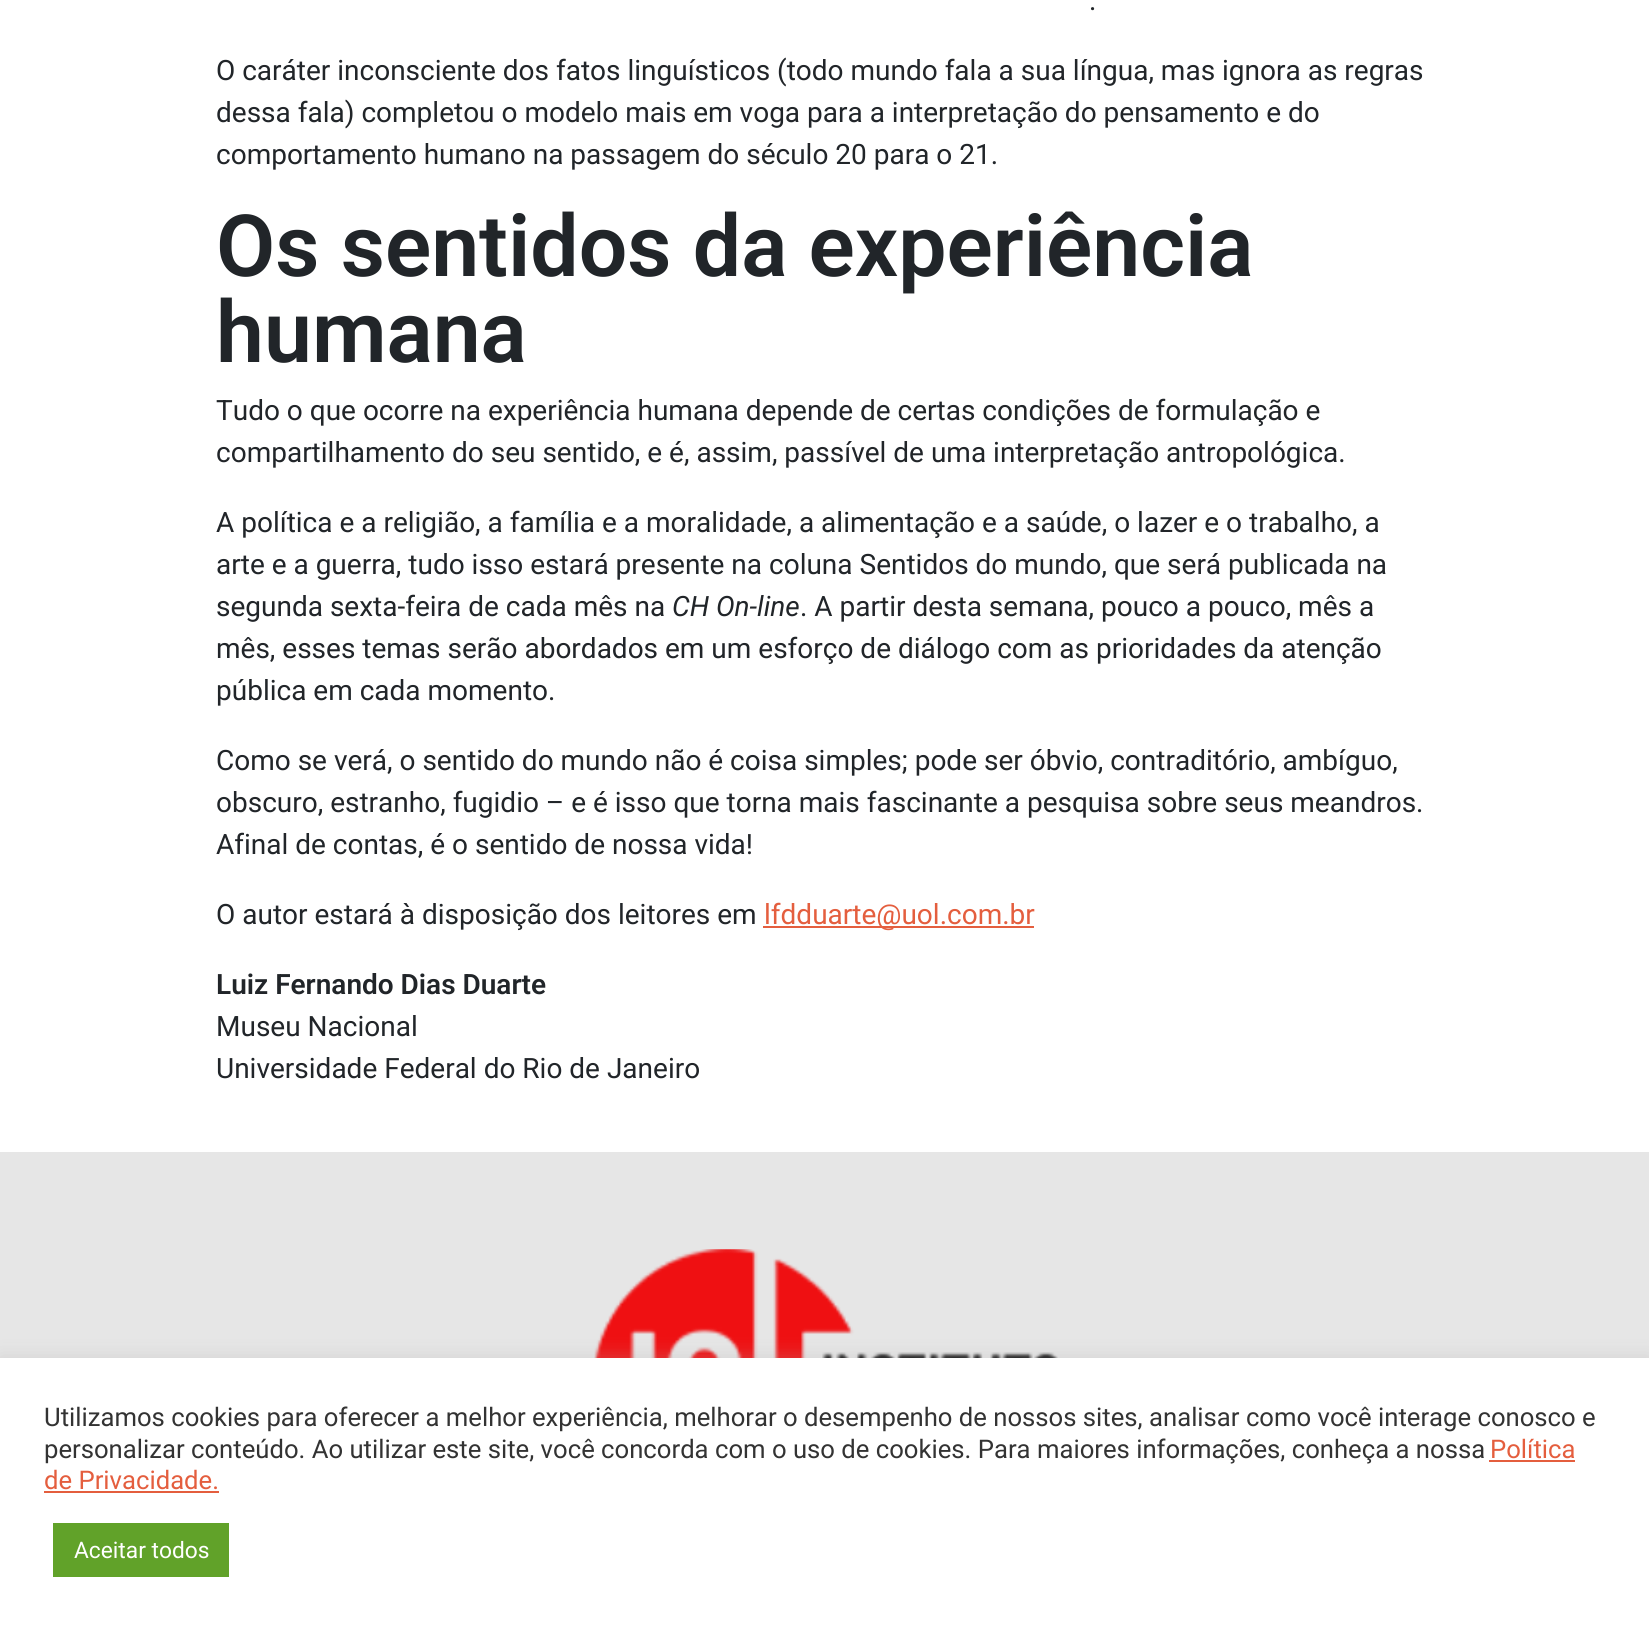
#include <cairo.h>
#include <math.h>
#include <stddef.h>


static void round_rect(cairo_t *cr, double x, double y, double w, double h, double r) {
    cairo_new_sub_path(cr);
    cairo_arc(cr, x + w - r, y + h - r, r, 0, M_PI / 2);
    cairo_arc(cr, x + r, y + h - r, r, M_PI / 2, M_PI);
    cairo_arc(cr, x + r, y + r, r, M_PI, 1.5 * M_PI);
    cairo_arc(cr, x + w - r, y + r, r, 1.5 * M_PI, 2 * M_PI);
    cairo_close_path(cr);
}

static void shadow(cairo_t *cr, double x, double y, double w, double h, double r, double blur, double alpha) {
    cairo_push_group_with_content(cr, CAIRO_CONTENT_ALPHA);
    cairo_set_operator(cr, CAIRO_OPERATOR_SOURCE);
    for (int i = 15; i >= -15 && fmin(w, h) + blur * i / 3 > 0; i -= 2) {
        double e = blur * i / 6;
        cairo_set_source_rgba(cr, 0, 0, 0, alpha * erfc((i - 1) / 8.5) / 2);
        round_rect(cr, x - e, y - e, w + 2 * e, h + 2 * e, fmax(0, fmin(r + e + blur * .6, fmin(w, h) / 2 + e)));
        cairo_fill(cr);
    }
    cairo_pattern_t *soft = cairo_pop_group(cr);
    cairo_mask(cr, soft);
    cairo_pattern_destroy(soft);
}

static void picture(cairo_t *cr, const char *path, double x, double y, double w, double h) {
    cairo_surface_t *image = cairo_image_surface_create_from_png(path);
    cairo_save(cr);
    cairo_set_source_surface(cr, image, x, y);
    cairo_rectangle(cr, x, y, w, h);
    cairo_fill(cr);
    cairo_restore(cr);
    cairo_surface_destroy(image);
}

int main(void) {
    cairo_surface_t *surface = cairo_image_surface_create(CAIRO_FORMAT_RGB24, 1649, 1629);
    cairo_t *cr = cairo_create(surface);
    cairo_font_options_t *options = cairo_font_options_create();
    cairo_font_options_set_hint_metrics(options, CAIRO_HINT_METRICS_OFF);
    cairo_font_options_set_hint_style(options, CAIRO_HINT_STYLE_NONE);
    cairo_set_font_options(cr, options);
    cairo_set_miter_limit(cr, 4);
    cairo_set_source_rgb(cr, 1, 1, 1);
    cairo_paint(cr);
    cairo_select_font_face(cr, "Roboto", CAIRO_FONT_SLANT_NORMAL, CAIRO_FONT_WEIGHT_NORMAL);
    cairo_set_font_size(cr, 28);
    cairo_set_source_rgb(cr, 0.129, 0.145, 0.161);
    cairo_move_to(cr, 1089, 10);
    cairo_show_text(cr, ".");
    cairo_move_to(cr, 216, 80);
    cairo_show_text(cr, "O caráter inconsciente dos fatos linguísticos (todo mundo fala a sua língua, mas ignora as regras");
    cairo_move_to(cr, 216, 122);
    cairo_show_text(cr, "dessa fala) completou o modelo mais em voga para a interpretação do pensamento e do");
    cairo_move_to(cr, 216, 164);
    cairo_show_text(cr, "comportamento humano na passagem do século 20 para o 21.");
    cairo_select_font_face(cr, "Roboto SemiBold", CAIRO_FONT_SLANT_NORMAL, CAIRO_FONT_WEIGHT_NORMAL);
    cairo_set_font_size(cr, 85.9);
    cairo_move_to(cr, 216, 276);
    cairo_show_text(cr, "Os sentidos da experiência");
    cairo_move_to(cr, 216, 362);
    cairo_show_text(cr, "humana");
    cairo_select_font_face(cr, "Roboto", CAIRO_FONT_SLANT_NORMAL, CAIRO_FONT_WEIGHT_NORMAL);
    cairo_set_font_size(cr, 28);
    cairo_move_to(cr, 216, 420);
    cairo_show_text(cr, "Tudo o que ocorre na experiência humana depende de certas condições de formulação e");
    cairo_move_to(cr, 216, 462);
    cairo_show_text(cr, "compartilhamento do seu sentido, e é, assim, passível de uma interpretação antropológica.");
    cairo_move_to(cr, 216, 532);
    cairo_show_text(cr, "A política e a religião, a família e a moralidade, a alimentação e a saúde, o lazer e o trabalho, a");
    cairo_move_to(cr, 216, 574);
    cairo_show_text(cr, "arte e a guerra, tudo isso estará presente na coluna Sentidos do mundo, que será publicada na");
    cairo_move_to(cr, 216, 616);
    cairo_show_text(cr, "segunda sexta-feira de cada mês na");
    cairo_select_font_face(cr, "Roboto", CAIRO_FONT_SLANT_ITALIC, CAIRO_FONT_WEIGHT_NORMAL);
    cairo_move_to(cr, 672, 616);
    cairo_show_text(cr, "CH On-line");
    cairo_select_font_face(cr, "Roboto", CAIRO_FONT_SLANT_NORMAL, CAIRO_FONT_WEIGHT_NORMAL);
    cairo_move_to(cr, 800, 616);
    cairo_show_text(cr, ". A partir desta semana, pouco a pouco, mês a");
    cairo_move_to(cr, 216, 658);
    cairo_show_text(cr, "mês, esses temas serão abordados em um esforço de diálogo com as prioridades da atenção");
    cairo_move_to(cr, 216, 700);
    cairo_show_text(cr, "pública em cada momento.");
    cairo_move_to(cr, 216, 770);
    cairo_show_text(cr, "Como se verá, o sentido do mundo não é coisa simples; pode ser óbvio, contraditório, ambíguo,");
    cairo_move_to(cr, 216, 812);
    cairo_show_text(cr, "obscuro, estranho, fugidio – e é isso que torna mais fascinante a pesquisa sobre seus meandros.");
    cairo_move_to(cr, 216, 854);
    cairo_show_text(cr, "Afinal de contas, é o sentido de nossa vida!");
    cairo_move_to(cr, 216, 924);
    cairo_show_text(cr, "O autor estará à disposição dos leitores em");
    cairo_set_source_rgb(cr, 0.894, 0.369, 0.243);
    cairo_rectangle(cr, 763, 926, 271, 2);
    cairo_fill(cr);
    cairo_move_to(cr, 764, 924);
    cairo_show_text(cr, "lfdduarte@uol.com.br");
    cairo_select_font_face(cr, "Roboto SemiBold", CAIRO_FONT_SLANT_NORMAL, CAIRO_FONT_WEIGHT_NORMAL);
    cairo_set_source_rgb(cr, 0.129, 0.145, 0.161);
    cairo_move_to(cr, 216, 994);
    cairo_show_text(cr, "Luiz Fernando Dias Duarte");
    cairo_select_font_face(cr, "Roboto", CAIRO_FONT_SLANT_NORMAL, CAIRO_FONT_WEIGHT_NORMAL);
    cairo_move_to(cr, 216, 1036);
    cairo_show_text(cr, "Museu Nacional");
    cairo_move_to(cr, 216, 1078);
    cairo_show_text(cr, "Universidade Federal do Rio de Janeiro");
    cairo_set_source_rgb(cr, 0.902, 0.902, 0.902);
    cairo_rectangle(cr, 0, 1152, 1649, 206);
    cairo_fill(cr);
    picture(cr, "img1.png", 594, 1249, 464, 109);
    cairo_set_source_rgb(cr, 0.675, 0.671, 0.671);
    shadow(cr, 0, 1356, 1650, 272, 0, 9, 0.3);
    cairo_set_source_rgb(cr, 1, 1, 1);
    cairo_rectangle(cr, 0, 1358, 1649, 271);
    cairo_fill(cr);
    cairo_set_font_size(cr, 25.67);
    cairo_set_source_rgb(cr, 0.2, 0.2, 0.2);
    cairo_move_to(cr, 44, 1426);
    cairo_show_text(cr, "Utilizamos cookies para oferecer a melhor experiência, melhorar o desempenho de nossos sites, analisar como você interage conosco e");
    cairo_move_to(cr, 44, 1458);
    cairo_show_text(cr, "personalizar conteúdo. Ao utilizar este site, você concorda com o uso de cookies. Para maiores informações, conheça a nossa");
    cairo_set_source_rgb(cr, 0.894, 0.369, 0.243);
    cairo_move_to(cr, 1490, 1458);
    cairo_show_text(cr, "Política");
    cairo_rectangle(cr, 1489, 1460, 86, 2);
    cairo_fill(cr);
    cairo_move_to(cr, 44, 1489);
    cairo_show_text(cr, "de Privacidade.");
    cairo_rectangle(cr, 44, 1491, 175, 2);
    cairo_fill(cr);
    cairo_set_source_rgb(cr, 0.38, 0.635, 0.161);
    cairo_rectangle(cr, 53, 1523, 176, 54);
    cairo_fill(cr);
    cairo_set_font_size(cr, 22.75);
    cairo_set_source_rgb(cr, 1, 1, 1);
    cairo_move_to(cr, 74, 1558);
    cairo_show_text(cr, "Aceitar todos");
    cairo_surface_write_to_png(surface, "page.png");
    cairo_font_options_destroy(options);
    cairo_destroy(cr);
    cairo_surface_destroy(surface);
    return 0;
}
